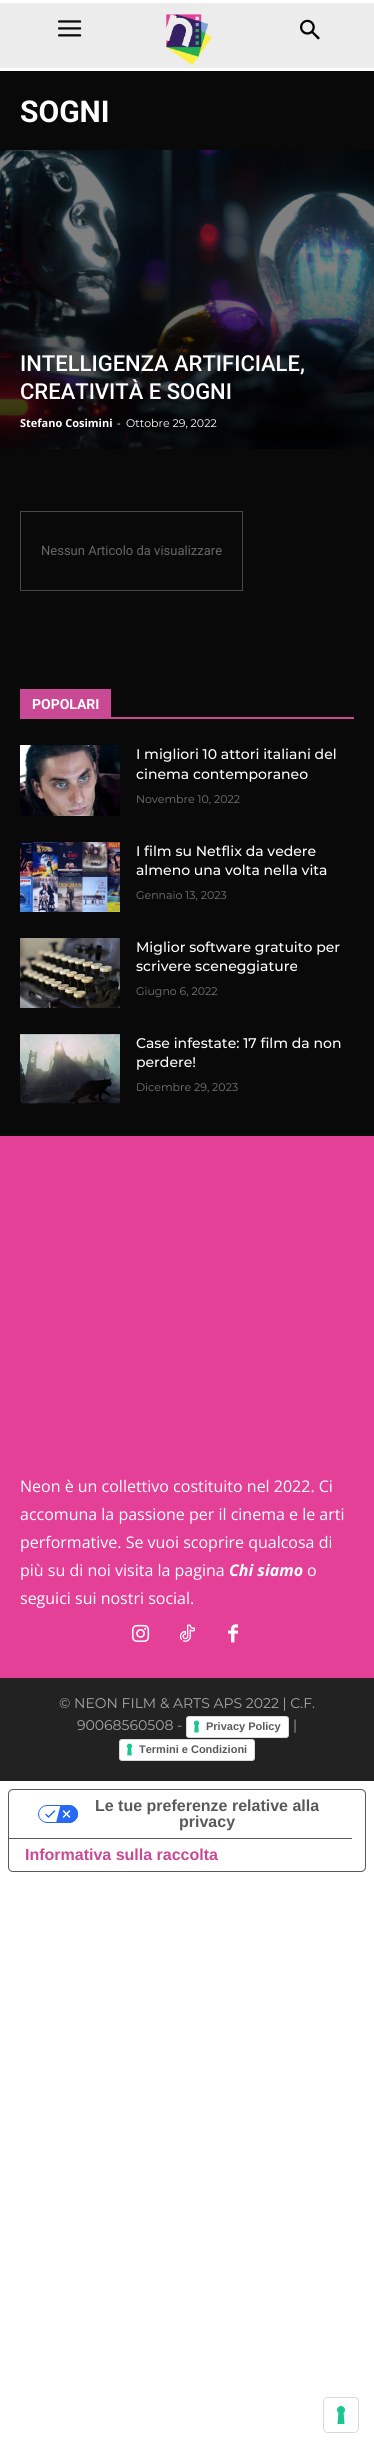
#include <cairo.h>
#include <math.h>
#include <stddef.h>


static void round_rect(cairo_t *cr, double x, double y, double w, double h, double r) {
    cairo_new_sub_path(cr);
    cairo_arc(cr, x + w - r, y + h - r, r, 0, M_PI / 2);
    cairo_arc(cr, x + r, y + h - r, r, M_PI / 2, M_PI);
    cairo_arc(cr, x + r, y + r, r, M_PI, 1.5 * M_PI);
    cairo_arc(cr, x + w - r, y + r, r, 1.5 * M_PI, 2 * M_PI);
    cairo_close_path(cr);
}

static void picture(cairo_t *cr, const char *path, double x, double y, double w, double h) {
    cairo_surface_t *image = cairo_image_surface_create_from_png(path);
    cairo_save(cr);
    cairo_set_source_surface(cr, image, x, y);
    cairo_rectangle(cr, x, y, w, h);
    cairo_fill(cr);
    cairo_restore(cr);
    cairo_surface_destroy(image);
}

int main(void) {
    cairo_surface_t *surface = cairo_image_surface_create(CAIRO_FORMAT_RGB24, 374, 2448);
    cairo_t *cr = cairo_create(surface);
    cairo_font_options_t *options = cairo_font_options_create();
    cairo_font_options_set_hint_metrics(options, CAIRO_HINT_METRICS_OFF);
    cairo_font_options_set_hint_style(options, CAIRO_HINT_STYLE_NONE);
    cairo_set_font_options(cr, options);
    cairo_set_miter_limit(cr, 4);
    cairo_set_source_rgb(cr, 1, 1, 1);
    cairo_paint(cr);
    cairo_set_source_rgb(cr, 0.922, 0.922, 0.922);
    cairo_rectangle(cr, 0, 3, 374, 65);
    cairo_fill(cr);
    picture(cr, "img1.png", 58, 20, 24, 17);
    picture(cr, "img2.png", 166, 14, 46, 52);
    picture(cr, "img3.png", 300, 19, 20, 21);
    cairo_set_source_rgb(cr, 0.039, 0.039, 0.039);
    cairo_rectangle(cr, 0, 71, 374, 1065);
    cairo_fill(cr);
    cairo_select_font_face(cr, "Roboto", CAIRO_FONT_SLANT_NORMAL, CAIRO_FONT_WEIGHT_BOLD);
    cairo_set_font_size(cr, 30);
    cairo_set_source_rgb(cr, 1, 1, 1);
    cairo_move_to(cr, 20, 122);
    cairo_show_text(cr, "SOGNI");
    picture(cr, "img4.png", 0, 150, 374, 299);
    cairo_select_font_face(cr, "Roboto Medium", CAIRO_FONT_SLANT_NORMAL, CAIRO_FONT_WEIGHT_NORMAL);
    cairo_set_font_size(cr, 22);
    cairo_move_to(cr, 20, 371);
    cairo_show_text(cr, "INTELLIGENZA ARTIFICIALE,");
    cairo_move_to(cr, 20, 399);
    cairo_show_text(cr, "CREATIVITÀ E SOGNI");
    cairo_select_font_face(cr, "Open Sans", CAIRO_FONT_SLANT_NORMAL, CAIRO_FONT_WEIGHT_BOLD);
    cairo_set_font_size(cr, 11);
    cairo_move_to(cr, 20, 427);
    cairo_show_text(cr, "Stefano Cosimini");
    cairo_select_font_face(cr, "Open Sans", CAIRO_FONT_SLANT_NORMAL, CAIRO_FONT_WEIGHT_NORMAL);
    cairo_move_to(cr, 117, 427);
    cairo_show_text(cr, "-");
    cairo_select_font_face(cr, "Montserrat", CAIRO_FONT_SLANT_NORMAL, CAIRO_FONT_WEIGHT_NORMAL);
    cairo_move_to(cr, 126, 427);
    cairo_show_text(cr, "Ottobre 29, 2022");
    cairo_rectangle(cr, 20.5, 511.5, 222, 79);
    cairo_set_source_rgb(cr, 0.286, 0.286, 0.286);
    cairo_set_line_width(cr, 1);
    cairo_stroke(cr);
    cairo_select_font_face(cr, "Roboto", CAIRO_FONT_SLANT_NORMAL, CAIRO_FONT_WEIGHT_NORMAL);
    cairo_set_font_size(cr, 13);
    cairo_set_source_rgb(cr, 0.4, 0.4, 0.4);
    cairo_move_to(cr, 41, 555);
    cairo_show_text(cr, "Nessun Articolo da visualizzare");
    cairo_set_source_rgb(cr, 0.788, 0.286, 0.58);
    cairo_rectangle(cr, 20, 717, 334, 2);
    cairo_fill(cr);
    cairo_rectangle(cr, 20, 689, 91, 28);
    cairo_fill(cr);
    cairo_select_font_face(cr, "Roboto", CAIRO_FONT_SLANT_NORMAL, CAIRO_FONT_WEIGHT_BOLD);
    cairo_set_font_size(cr, 14);
    cairo_set_source_rgb(cr, 1, 1, 1);
    cairo_move_to(cr, 32, 709);
    cairo_show_text(cr, "POPOLARI");
    picture(cr, "img5.png", 20, 745, 100, 71);
    cairo_select_font_face(cr, "Montserrat Medium", CAIRO_FONT_SLANT_NORMAL, CAIRO_FONT_WEIGHT_NORMAL);
    cairo_move_to(cr, 136, 759);
    cairo_show_text(cr, "I migliori 10 attori italiani del");
    cairo_move_to(cr, 136, 779);
    cairo_show_text(cr, "cinema contemporaneo");
    cairo_select_font_face(cr, "Montserrat", CAIRO_FONT_SLANT_NORMAL, CAIRO_FONT_WEIGHT_NORMAL);
    cairo_set_font_size(cr, 11);
    cairo_set_source_rgb(cr, 0.463, 0.463, 0.463);
    cairo_move_to(cr, 136, 803);
    cairo_show_text(cr, "Novembre 10, 2022");
    picture(cr, "img6.png", 20, 842, 100, 70);
    cairo_select_font_face(cr, "Montserrat Medium", CAIRO_FONT_SLANT_NORMAL, CAIRO_FONT_WEIGHT_NORMAL);
    cairo_set_font_size(cr, 14);
    cairo_set_source_rgb(cr, 1, 1, 1);
    cairo_move_to(cr, 136, 856);
    cairo_show_text(cr, "I film su Netflix da vedere");
    cairo_move_to(cr, 136, 875);
    cairo_show_text(cr, "almeno una volta nella vita");
    cairo_select_font_face(cr, "Montserrat", CAIRO_FONT_SLANT_NORMAL, CAIRO_FONT_WEIGHT_NORMAL);
    cairo_set_font_size(cr, 11);
    cairo_set_source_rgb(cr, 0.463, 0.463, 0.463);
    cairo_move_to(cr, 136, 899);
    cairo_show_text(cr, "Gennaio 13, 2023");
    picture(cr, "img7.png", 20, 938, 100, 70);
    cairo_select_font_face(cr, "Montserrat Medium", CAIRO_FONT_SLANT_NORMAL, CAIRO_FONT_WEIGHT_NORMAL);
    cairo_set_font_size(cr, 14);
    cairo_set_source_rgb(cr, 1, 1, 1);
    cairo_move_to(cr, 136, 952);
    cairo_show_text(cr, "Miglior software gratuito per");
    cairo_move_to(cr, 136, 971);
    cairo_show_text(cr, "scrivere sceneggiature");
    cairo_select_font_face(cr, "Montserrat", CAIRO_FONT_SLANT_NORMAL, CAIRO_FONT_WEIGHT_NORMAL);
    cairo_set_font_size(cr, 11);
    cairo_set_source_rgb(cr, 0.463, 0.463, 0.463);
    cairo_move_to(cr, 136, 995);
    cairo_show_text(cr, "Giugno 6, 2022");
    picture(cr, "img8.png", 20, 1034, 100, 70);
    cairo_select_font_face(cr, "Montserrat Medium", CAIRO_FONT_SLANT_NORMAL, CAIRO_FONT_WEIGHT_NORMAL);
    cairo_set_font_size(cr, 14);
    cairo_set_source_rgb(cr, 1, 1, 1);
    cairo_move_to(cr, 136, 1048);
    cairo_show_text(cr, "Case infestate: 17 film da non");
    cairo_move_to(cr, 136, 1067);
    cairo_show_text(cr, "perdere!");
    cairo_select_font_face(cr, "Montserrat", CAIRO_FONT_SLANT_NORMAL, CAIRO_FONT_WEIGHT_NORMAL);
    cairo_set_font_size(cr, 11);
    cairo_set_source_rgb(cr, 0.463, 0.463, 0.463);
    cairo_move_to(cr, 136, 1091);
    cairo_show_text(cr, "Dicembre 29, 2023");
    cairo_set_source_rgb(cr, 0.898, 0.251, 0.596);
    cairo_rectangle(cr, 0, 1136, 374, 542);
    cairo_fill(cr);
    cairo_select_font_face(cr, "Open Sans", CAIRO_FONT_SLANT_NORMAL, CAIRO_FONT_WEIGHT_NORMAL);
    cairo_set_font_size(cr, 16);
    cairo_set_source_rgb(cr, 1, 1, 1);
    cairo_move_to(cr, 20, 1492);
    cairo_show_text(cr, "Neon è un collettivo costituito nel 2022. Ci");
    cairo_move_to(cr, 20, 1520);
    cairo_show_text(cr, "accomuna la passione per il cinema e le arti");
    cairo_move_to(cr, 20, 1548);
    cairo_show_text(cr, "performative. Se vuoi scoprire qualcosa di");
    cairo_move_to(cr, 20, 1576);
    cairo_show_text(cr, "più su di noi visita la pagina");
    cairo_select_font_face(cr, "Open Sans", CAIRO_FONT_SLANT_ITALIC, CAIRO_FONT_WEIGHT_BOLD);
    cairo_move_to(cr, 229, 1576);
    cairo_show_text(cr, "Chi siamo");
    cairo_select_font_face(cr, "Open Sans", CAIRO_FONT_SLANT_NORMAL, CAIRO_FONT_WEIGHT_NORMAL);
    cairo_move_to(cr, 307, 1576);
    cairo_show_text(cr, "o");
    cairo_move_to(cr, 20, 1604);
    cairo_show_text(cr, "seguici sui nostri social.");
    picture(cr, "img9.png", 132, 1624, 18, 18);
    picture(cr, "img10.png", 179, 1624, 16, 18);
    picture(cr, "img11.png", 228, 1624, 10, 19);
    cairo_set_source_rgb(cr, 0.133, 0.133, 0.133);
    cairo_rectangle(cr, 0, 1678, 374, 103);
    cairo_fill(cr);
    cairo_select_font_face(cr, "Montserrat", CAIRO_FONT_SLANT_NORMAL, CAIRO_FONT_WEIGHT_NORMAL);
    cairo_set_font_size(cr, 14);
    cairo_set_source_rgb(cr, 0.655, 0.655, 0.655);
    cairo_move_to(cr, 59, 1708);
    cairo_show_text(cr, "© NEON FILM & ARTS APS 2022 | C.F.");
    cairo_move_to(cr, 77, 1730);
    cairo_show_text(cr, "90068560508 -");
    cairo_set_source_rgb(cr, 1, 1, 1);
    round_rect(cr, 186, 1716, 103, 22, 3);
    cairo_fill(cr);
    picture(cr, "img12.png", 193, 1720, 7, 13);
    round_rect(cr, 186.5, 1716.5, 102, 21, 2.5);
    cairo_set_source_rgba(cr, 0, 0, 0, 0.15);
    cairo_stroke(cr);
    cairo_select_font_face(cr, "Liberation Sans", CAIRO_FONT_SLANT_NORMAL, CAIRO_FONT_WEIGHT_BOLD);
    cairo_set_font_size(cr, 11);
    cairo_set_source_rgb(cr, 0.349, 0.349, 0.349);
    cairo_move_to(cr, 206, 1730);
    cairo_show_text(cr, "Privacy Policy");
    cairo_select_font_face(cr, "Montserrat", CAIRO_FONT_SLANT_NORMAL, CAIRO_FONT_WEIGHT_NORMAL);
    cairo_set_font_size(cr, 14);
    cairo_set_source_rgb(cr, 0.655, 0.655, 0.655);
    cairo_move_to(cr, 293, 1730);
    cairo_show_text(cr, "|");
    cairo_set_source_rgb(cr, 1, 1, 1);
    round_rect(cr, 119, 1739, 136, 22, 3);
    cairo_fill(cr);
    picture(cr, "img12.png", 126, 1743, 7, 13);
    round_rect(cr, 119.5, 1739.5, 135, 21, 2.5);
    cairo_set_source_rgba(cr, 0, 0, 0, 0.15);
    cairo_stroke(cr);
    cairo_select_font_face(cr, "Liberation Sans", CAIRO_FONT_SLANT_NORMAL, CAIRO_FONT_WEIGHT_BOLD);
    cairo_set_font_size(cr, 11);
    cairo_set_source_rgb(cr, 0.349, 0.349, 0.349);
    cairo_move_to(cr, 139, 1753);
    cairo_show_text(cr, "Termini e Condizioni");
    round_rect(cr, 8.5, 1789.5, 357, 82, 4.5);
    cairo_stroke(cr);
    cairo_rectangle(cr, 9, 1838, 343, 1);
    cairo_fill(cr);
    picture(cr, "img13.png", 38, 1805, 40, 18);
    cairo_set_font_size(cr, 16);
    cairo_move_to(cr, 95, 1811);
    cairo_show_text(cr, "Le tue preferenze relative alla");
    cairo_move_to(cr, 179, 1827);
    cairo_show_text(cr, "privacy");
    cairo_set_source_rgb(cr, 0.788, 0.286, 0.58);
    cairo_move_to(cr, 25, 1860);
    cairo_show_text(cr, "Informativa sulla raccolta");
    round_rect(cr, 323.5, 2397.5, 35, 35, 4.5);
    cairo_set_source_rgb(cr, 0.851, 0.851, 0.851);
    cairo_stroke(cr);
    cairo_set_source_rgb(cr, 1, 1, 1);
    round_rect(cr, 324, 2398, 34, 34, 4);
    cairo_fill(cr);
    picture(cr, "img14.png", 337, 2406, 8, 18);
    cairo_surface_write_to_png(surface, "page.png");
    cairo_font_options_destroy(options);
    cairo_destroy(cr);
    cairo_surface_destroy(surface);
    return 0;
}
